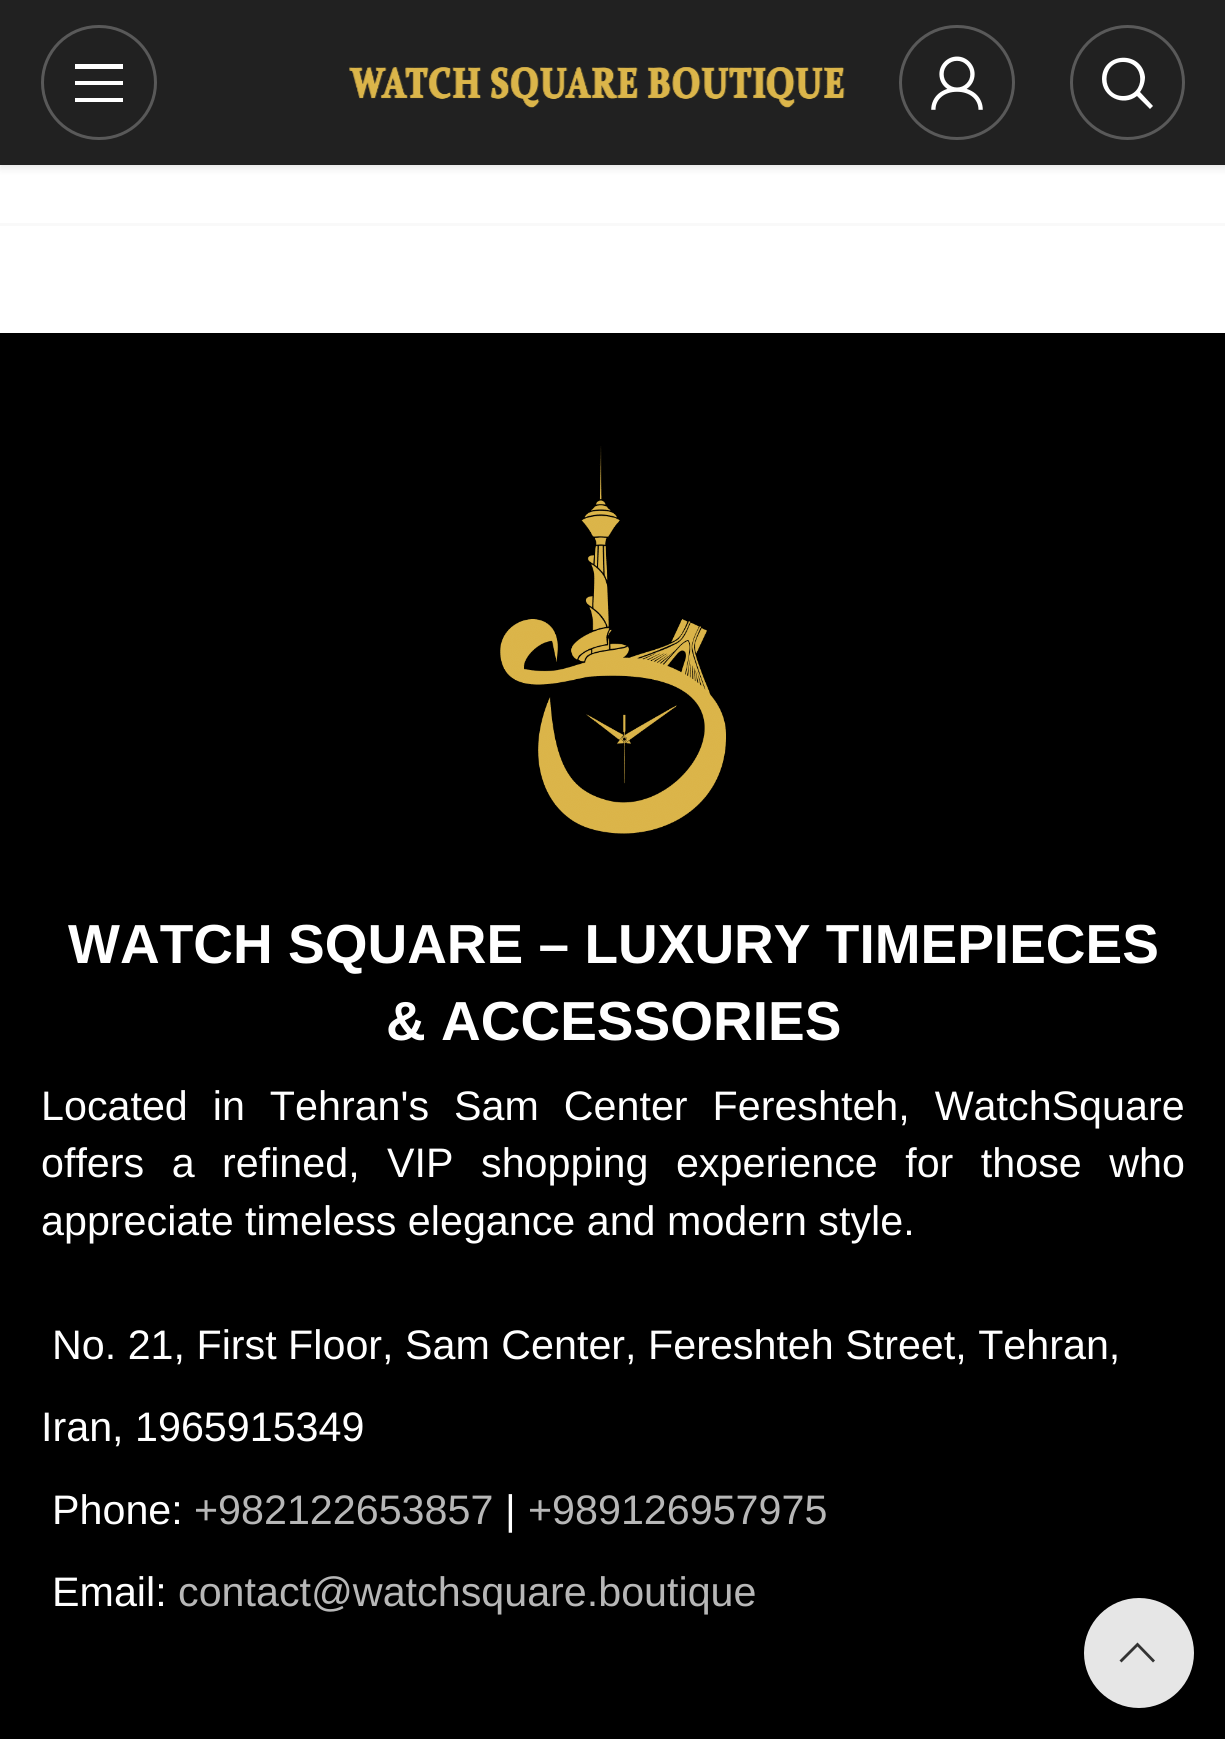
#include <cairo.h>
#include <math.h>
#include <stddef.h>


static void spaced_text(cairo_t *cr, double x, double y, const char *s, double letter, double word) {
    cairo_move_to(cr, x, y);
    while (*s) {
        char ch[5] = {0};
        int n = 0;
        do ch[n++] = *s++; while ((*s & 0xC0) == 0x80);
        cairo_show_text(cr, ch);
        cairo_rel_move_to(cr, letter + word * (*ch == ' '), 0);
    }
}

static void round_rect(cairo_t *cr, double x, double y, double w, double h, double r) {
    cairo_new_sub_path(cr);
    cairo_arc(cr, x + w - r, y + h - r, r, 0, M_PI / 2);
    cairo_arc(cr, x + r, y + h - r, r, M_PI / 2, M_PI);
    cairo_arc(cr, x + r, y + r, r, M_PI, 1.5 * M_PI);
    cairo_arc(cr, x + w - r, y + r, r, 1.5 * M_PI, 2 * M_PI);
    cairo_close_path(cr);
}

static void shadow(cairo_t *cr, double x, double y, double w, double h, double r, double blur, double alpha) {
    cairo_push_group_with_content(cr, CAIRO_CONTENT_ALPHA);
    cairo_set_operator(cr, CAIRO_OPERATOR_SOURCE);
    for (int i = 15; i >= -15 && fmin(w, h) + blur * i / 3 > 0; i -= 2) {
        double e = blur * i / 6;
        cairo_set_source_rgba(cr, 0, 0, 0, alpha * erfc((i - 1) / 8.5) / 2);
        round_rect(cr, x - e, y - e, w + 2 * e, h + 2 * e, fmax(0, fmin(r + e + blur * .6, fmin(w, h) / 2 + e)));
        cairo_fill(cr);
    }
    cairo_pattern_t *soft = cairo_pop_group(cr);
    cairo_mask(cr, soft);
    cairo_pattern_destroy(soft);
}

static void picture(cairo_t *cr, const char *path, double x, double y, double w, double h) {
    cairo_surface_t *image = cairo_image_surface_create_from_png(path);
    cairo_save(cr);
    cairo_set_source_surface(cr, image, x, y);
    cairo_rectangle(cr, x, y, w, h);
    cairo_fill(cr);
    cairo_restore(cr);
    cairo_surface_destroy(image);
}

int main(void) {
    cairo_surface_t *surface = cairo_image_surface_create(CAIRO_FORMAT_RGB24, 1225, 1739);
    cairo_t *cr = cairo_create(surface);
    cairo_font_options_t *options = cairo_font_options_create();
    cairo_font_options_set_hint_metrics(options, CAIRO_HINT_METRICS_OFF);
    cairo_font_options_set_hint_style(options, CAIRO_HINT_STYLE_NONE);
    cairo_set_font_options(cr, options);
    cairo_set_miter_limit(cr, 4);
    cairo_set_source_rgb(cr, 1, 1, 1);
    cairo_paint(cr);
    cairo_set_source_rgb(cr, 0, 0, 0);
    shadow(cr, 0, 3, 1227, 165, 0, 4, 0.1);
    cairo_set_source_rgb(cr, 0.129, 0.129, 0.129);
    cairo_rectangle(cr, 0, 0, 1225, 165);
    cairo_fill(cr);
    round_rect(cr, 42.5, 26.5, 113, 112, 56);
    cairo_set_source_rgb(cr, 0.349, 0.349, 0.349);
    cairo_set_line_width(cr, 3);
    cairo_stroke(cr);
    cairo_set_source_rgb(cr, 1, 1, 1);
    cairo_new_path(cr);
    cairo_move_to(cr, 75, 69);
    cairo_line_to(cr, 123, 69);
    cairo_line_to(cr, 123, 64);
    cairo_line_to(cr, 75, 64);
    cairo_close_path(cr);
    cairo_move_to(cr, 75, 85);
    cairo_line_to(cr, 123, 85);
    cairo_line_to(cr, 123, 81);
    cairo_line_to(cr, 75, 81);
    cairo_close_path(cr);
    cairo_move_to(cr, 75, 102);
    cairo_line_to(cr, 123, 102);
    cairo_line_to(cr, 123, 98);
    cairo_line_to(cr, 75, 98);
    cairo_close_path(cr);
    cairo_fill(cr);
    picture(cr, "img1.png", 349, 67, 496, 41);
    round_rect(cr, 900.5, 26.5, 113, 112, 56);
    cairo_set_source_rgb(cr, 0.349, 0.349, 0.349);
    cairo_stroke(cr);
    picture(cr, "img2.png", 931, 56, 52, 54);
    cairo_arc(cr, 1127.5, 82.5, 56, 0, 2 * M_PI);
    cairo_stroke(cr);
    cairo_set_source_rgb(cr, 1, 1, 1);
    cairo_new_path(cr);
    cairo_move_to(cr, 1102, 79);
    cairo_curve_to(cr, 1102, 97, 1123, 107, 1137, 96);
    cairo_line_to(cr, 1150, 109);
    cairo_line_to(cr, 1153, 106);
    cairo_line_to(cr, 1140, 92);
    cairo_curve_to(cr, 1143, 88, 1145, 82, 1145, 77);
    cairo_curve_to(cr, 1142, 50, 1102, 52, 1102, 79);
    cairo_close_path(cr);
    cairo_move_to(cr, 1123, 96);
    cairo_curve_to(cr, 1101, 96, 1101, 62, 1123, 62);
    cairo_curve_to(cr, 1146, 62, 1146, 96, 1123, 96);
    cairo_close_path(cr);
    cairo_fill(cr);
    cairo_set_source_rgb(cr, 0.976, 0.976, 0.976);
    cairo_rectangle(cr, 0, 223, 1225, 3);
    cairo_fill(cr);
    cairo_set_source_rgb(cr, 0, 0, 0);
    cairo_rectangle(cr, 0, 333, 1225, 1406);
    cairo_fill(cr);
    picture(cr, "img3.png", 500, 446, 226, 388);
    cairo_select_font_face(cr, "Liberation Sans", CAIRO_FONT_SLANT_NORMAL, CAIRO_FONT_WEIGHT_BOLD);
    cairo_set_font_size(cr, 55);
    cairo_set_source_rgb(cr, 1, 1, 1);
    cairo_move_to(cr, 68, 963);
    cairo_show_text(cr, "WATCH SQUARE – LUXURY TIMEPIECES");
    cairo_move_to(cr, 386, 1040);
    cairo_show_text(cr, "& ACCESSORIES");
    cairo_select_font_face(cr, "Liberation Sans", CAIRO_FONT_SLANT_NORMAL, CAIRO_FONT_WEIGHT_NORMAL);
    cairo_set_font_size(cr, 41.25);
    spaced_text(cr, 41, 1120, "Located in Tehran's Sam Center Fereshteh, WatchSquare", 0, 13.5);
    spaced_text(cr, 41, 1177, "offers a refined, VIP shopping experience for those who", 0, 16);
    cairo_move_to(cr, 41, 1235);
    cairo_show_text(cr, "appreciate timeless elegance and modern style.");
    cairo_move_to(cr, 52, 1359);
    cairo_show_text(cr, "No. 21, First Floor, Sam Center, Fereshteh Street, Tehran,");
    cairo_move_to(cr, 41, 1441);
    cairo_show_text(cr, "Iran, 1965915349");
    cairo_move_to(cr, 52, 1524);
    cairo_show_text(cr, "Phone:");
    cairo_set_source_rgb(cr, 0.718, 0.718, 0.718);
    cairo_move_to(cr, 194, 1524);
    cairo_show_text(cr, "+982122653857");
    cairo_set_source_rgb(cr, 1, 1, 1);
    cairo_move_to(cr, 505, 1524);
    cairo_show_text(cr, "|");
    cairo_set_source_rgb(cr, 0.718, 0.718, 0.718);
    cairo_move_to(cr, 528, 1524);
    cairo_show_text(cr, "+989126957975");
    cairo_set_source_rgb(cr, 1, 1, 1);
    cairo_move_to(cr, 52, 1606);
    cairo_show_text(cr, "Email:");
    cairo_set_source_rgb(cr, 0.718, 0.718, 0.718);
    cairo_move_to(cr, 178, 1606);
    cairo_show_text(cr, "contact@watchsquare.boutique");
    cairo_set_source_rgb(cr, 0.902, 0.902, 0.902);
    cairo_new_path(cr);
    cairo_arc(cr, 1139, 1653, 55, 0, 2 * M_PI);
    cairo_fill(cr);
    cairo_set_source_rgb(cr, 0.2, 0.2, 0.2);
    cairo_new_path(cr);
    cairo_move_to(cr, 1153, 1662.5);
    cairo_line_to(cr, 1155, 1660.5);
    cairo_line_to(cr, 1137.5, 1642.5);
    cairo_line_to(cr, 1119.5, 1660.5);
    cairo_line_to(cr, 1121.5, 1662.5);
    cairo_line_to(cr, 1137.5, 1646.5);
    cairo_close_path(cr);
    cairo_fill(cr);
    cairo_surface_write_to_png(surface, "page.png");
    cairo_font_options_destroy(options);
    cairo_destroy(cr);
    cairo_surface_destroy(surface);
    return 0;
}
